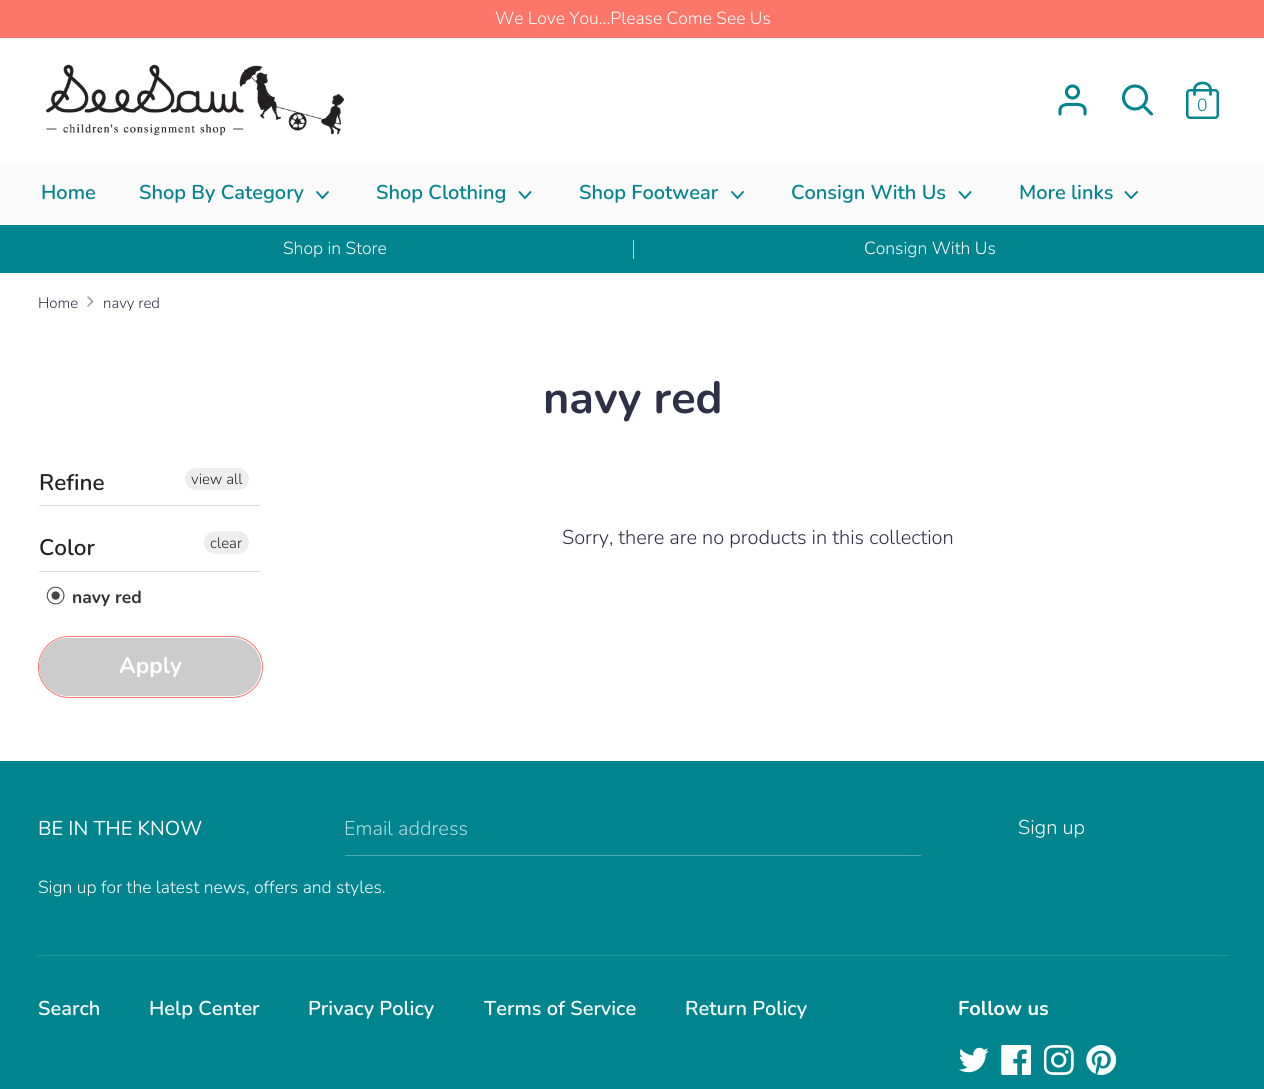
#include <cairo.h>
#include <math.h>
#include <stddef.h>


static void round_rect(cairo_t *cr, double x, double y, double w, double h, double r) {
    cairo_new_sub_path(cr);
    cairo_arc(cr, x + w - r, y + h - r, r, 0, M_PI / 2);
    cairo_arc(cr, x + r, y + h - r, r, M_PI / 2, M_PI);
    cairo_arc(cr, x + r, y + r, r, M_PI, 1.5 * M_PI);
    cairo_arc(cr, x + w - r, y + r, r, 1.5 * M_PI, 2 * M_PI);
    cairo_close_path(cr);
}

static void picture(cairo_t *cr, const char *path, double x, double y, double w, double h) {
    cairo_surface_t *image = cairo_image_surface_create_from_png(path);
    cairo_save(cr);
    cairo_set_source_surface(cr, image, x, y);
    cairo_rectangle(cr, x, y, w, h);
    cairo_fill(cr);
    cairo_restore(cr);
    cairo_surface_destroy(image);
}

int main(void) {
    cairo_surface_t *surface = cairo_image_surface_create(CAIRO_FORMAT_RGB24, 1264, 1089);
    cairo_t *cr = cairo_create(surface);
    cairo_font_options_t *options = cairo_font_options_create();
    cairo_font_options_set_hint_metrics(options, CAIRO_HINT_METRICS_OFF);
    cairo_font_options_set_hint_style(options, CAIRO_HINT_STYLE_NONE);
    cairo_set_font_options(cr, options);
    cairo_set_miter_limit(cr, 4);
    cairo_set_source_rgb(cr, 1, 1, 1);
    cairo_paint(cr);
    cairo_set_source_rgb(cr, 0.988, 0.463, 0.416);
    cairo_rectangle(cr, 0, 0, 1264, 38);
    cairo_fill(cr);
    cairo_select_font_face(cr, "Nunito Light", CAIRO_FONT_SLANT_NORMAL, CAIRO_FONT_WEIGHT_NORMAL);
    cairo_set_font_size(cr, 17.5);
    cairo_set_source_rgb(cr, 1, 1, 1);
    cairo_move_to(cr, 495, 24);
    cairo_show_text(cr, "We Love You...Please Come See Us");
    picture(cr, "img1.png", 46, 64, 299, 72);
    cairo_new_path(cr);
    cairo_move_to(cr, 1085, 114);
    cairo_line_to(cr, 1085, 109.5);
    cairo_curve_to(cr, 1083.5, 103.5, 1077, 104.5, 1072.5, 104.5);
    cairo_curve_to(cr, 1068, 104.5, 1061.5, 103.5, 1060, 109.5);
    cairo_line_to(cr, 1060, 114);
    cairo_set_source_rgb(cr, 0, 0.518, 0.557);
    cairo_set_line_width(cr, 3.1);
    cairo_set_line_cap(cr, CAIRO_LINE_CAP_ROUND);
    cairo_stroke(cr);
    cairo_arc(cr, 1072.5, 92, 6, 0, 2 * M_PI);
    cairo_set_line_cap(cr, CAIRO_LINE_CAP_BUTT);
    cairo_stroke(cr);
    cairo_arc(cr, 1135, 97.5, 11.5, 0, 2 * M_PI);
    cairo_stroke(cr);
    cairo_new_path(cr);
    cairo_move_to(cr, 1151.5, 114);
    cairo_line_to(cr, 1143.5, 106);
    cairo_set_line_cap(cr, CAIRO_LINE_CAP_ROUND);
    cairo_stroke(cr);
    round_rect(cr, 1187.25, 90.25, 30.5, 27.5, 2.75);
    cairo_set_line_width(cr, 2.5);
    cairo_set_line_cap(cr, CAIRO_LINE_CAP_BUTT);
    cairo_stroke(cr);
    cairo_new_path(cr);
    cairo_move_to(cr, 1194.5, 94.5);
    cairo_line_to(cr, 1194.5, 89.5);
    cairo_curve_to(cr, 1194.5, 85.5, 1198, 83, 1202.5, 83);
    cairo_curve_to(cr, 1207, 83, 1210.5, 85.5, 1210.5, 89.5);
    cairo_line_to(cr, 1210.5, 94.5);
    cairo_set_line_width(cr, 2.7);
    cairo_set_line_cap(cr, CAIRO_LINE_CAP_ROUND);
    cairo_stroke(cr);
    cairo_move_to(cr, 1197, 111);
    cairo_show_text(cr, "0");
    cairo_set_source_rgb(cr, 0.98, 0.98, 0.98);
    cairo_rectangle(cr, 0, 163, 1264, 62);
    cairo_fill(cr);
    cairo_select_font_face(cr, "Nunito SemiBold", CAIRO_FONT_SLANT_NORMAL, CAIRO_FONT_WEIGHT_NORMAL);
    cairo_set_font_size(cr, 20);
    cairo_set_source_rgb(cr, 0, 0.518, 0.557);
    cairo_move_to(cr, 41, 199);
    cairo_show_text(cr, "Home");
    cairo_move_to(cr, 139, 199);
    cairo_show_text(cr, "Shop By Category");
    cairo_new_path(cr);
    cairo_move_to(cr, 317, 192);
    cairo_line_to(cr, 322.5, 198);
    cairo_line_to(cr, 328, 192);
    cairo_set_line_width(cr, 1.9);
    cairo_stroke(cr);
    cairo_move_to(cr, 376, 199);
    cairo_show_text(cr, "Shop Clothing");
    cairo_new_path(cr);
    cairo_move_to(cr, 519.5, 192);
    cairo_line_to(cr, 525, 198);
    cairo_line_to(cr, 530.5, 192);
    cairo_stroke(cr);
    cairo_move_to(cr, 579, 199);
    cairo_show_text(cr, "Shop Footwear");
    cairo_new_path(cr);
    cairo_move_to(cr, 732, 192);
    cairo_line_to(cr, 737.5, 198);
    cairo_line_to(cr, 743, 192);
    cairo_stroke(cr);
    cairo_move_to(cr, 791, 199);
    cairo_show_text(cr, "Consign With Us");
    cairo_new_path(cr);
    cairo_move_to(cr, 959.5, 192);
    cairo_line_to(cr, 965, 198);
    cairo_line_to(cr, 970.5, 192);
    cairo_stroke(cr);
    cairo_move_to(cr, 1019, 199);
    cairo_show_text(cr, "More links");
    cairo_new_path(cr);
    cairo_move_to(cr, 1125.5, 192);
    cairo_line_to(cr, 1131, 198);
    cairo_line_to(cr, 1137, 192);
    cairo_stroke(cr);
    cairo_rectangle(cr, 0, 225, 1264, 48);
    cairo_fill(cr);
    cairo_select_font_face(cr, "Nunito Light", CAIRO_FONT_SLANT_NORMAL, CAIRO_FONT_WEIGHT_NORMAL);
    cairo_set_font_size(cr, 17.5);
    cairo_set_source_rgb(cr, 1, 1, 1);
    cairo_move_to(cr, 283, 254);
    cairo_show_text(cr, "Shop in Store");
    cairo_set_source_rgb(cr, 0.702, 0.855, 0.867);
    cairo_rectangle(cr, 633, 240, 1, 19);
    cairo_fill(cr);
    cairo_set_source_rgb(cr, 1, 1, 1);
    cairo_move_to(cr, 864, 254);
    cairo_show_text(cr, "Consign With Us");
    cairo_set_font_size(cr, 15);
    cairo_set_source_rgb(cr, 0.176, 0.188, 0.278);
    cairo_move_to(cr, 38, 308);
    cairo_show_text(cr, "Home");
    cairo_new_path(cr);
    cairo_move_to(cr, 88, 306);
    cairo_line_to(cr, 92.5, 301.5);
    cairo_line_to(cr, 88, 297);
    cairo_set_source_rgb(cr, 0.588, 0.596, 0.639);
    cairo_set_line_width(cr, 1.5);
    cairo_stroke(cr);
    cairo_set_source_rgb(cr, 0.176, 0.188, 0.278);
    cairo_move_to(cr, 103, 308);
    cairo_show_text(cr, "navy red");
    cairo_select_font_face(cr, "Nunito", CAIRO_FONT_SLANT_NORMAL, CAIRO_FONT_WEIGHT_BOLD);
    cairo_set_font_size(cr, 45);
    cairo_move_to(cr, 543, 413);
    cairo_show_text(cr, "navy red");
    cairo_set_source_rgb(cr, 0.867, 0.867, 0.867);
    cairo_rectangle(cr, 39, 505, 222, 1);
    cairo_fill(cr);
    cairo_select_font_face(cr, "Nunito SemiBold", CAIRO_FONT_SLANT_NORMAL, CAIRO_FONT_WEIGHT_NORMAL);
    cairo_set_font_size(cr, 22.5);
    cairo_set_source_rgb(cr, 0.133, 0.133, 0.133);
    cairo_move_to(cr, 39, 490);
    cairo_show_text(cr, "Refine");
    cairo_set_source_rgb(cr, 0.933, 0.933, 0.933);
    round_rect(cr, 185, 468, 64, 22, 11);
    cairo_fill(cr);
    cairo_select_font_face(cr, "Nunito Light", CAIRO_FONT_SLANT_NORMAL, CAIRO_FONT_WEIGHT_NORMAL);
    cairo_set_font_size(cr, 15);
    cairo_set_source_rgb(cr, 0.133, 0.133, 0.133);
    cairo_move_to(cr, 191, 484);
    cairo_show_text(cr, "view all");
    cairo_set_source_rgb(cr, 0.867, 0.867, 0.867);
    cairo_rectangle(cr, 39, 571, 222, 1);
    cairo_fill(cr);
    cairo_select_font_face(cr, "Nunito SemiBold", CAIRO_FONT_SLANT_NORMAL, CAIRO_FONT_WEIGHT_NORMAL);
    cairo_set_font_size(cr, 22.5);
    cairo_set_source_rgb(cr, 0.133, 0.133, 0.133);
    cairo_move_to(cr, 39, 555);
    cairo_show_text(cr, "Color");
    cairo_set_source_rgb(cr, 0.933, 0.933, 0.933);
    round_rect(cr, 204, 531, 45, 23, 11.5);
    cairo_fill(cr);
    cairo_select_font_face(cr, "Nunito Light", CAIRO_FONT_SLANT_NORMAL, CAIRO_FONT_WEIGHT_NORMAL);
    cairo_set_font_size(cr, 15);
    cairo_set_source_rgb(cr, 0.133, 0.133, 0.133);
    cairo_move_to(cr, 210, 548);
    cairo_show_text(cr, "clear");
    picture(cr, "img2.png", 46, 586, 19, 19);
    cairo_select_font_face(cr, "Nunito", CAIRO_FONT_SLANT_NORMAL, CAIRO_FONT_WEIGHT_BOLD);
    cairo_set_font_size(cr, 17.5);
    cairo_set_source_rgb(cr, 0.2, 0.2, 0.2);
    cairo_move_to(cr, 72, 603);
    cairo_show_text(cr, "navy red");
    round_rect(cr, 38.5, 636.5, 224, 61, 30.5);
    cairo_set_source_rgb(cr, 0.988, 0.463, 0.416);
    cairo_set_line_width(cr, 1);
    cairo_set_line_cap(cr, CAIRO_LINE_CAP_BUTT);
    cairo_stroke(cr);
    cairo_set_source_rgb(cr, 0.8, 0.8, 0.8);
    round_rect(cr, 39, 638, 222, 58, 29);
    cairo_fill(cr);
    cairo_set_font_size(cr, 22.5);
    cairo_set_source_rgb(cr, 1, 1, 1);
    cairo_move_to(cr, 119, 673);
    cairo_show_text(cr, "Apply");
    cairo_select_font_face(cr, "Nunito Light", CAIRO_FONT_SLANT_NORMAL, CAIRO_FONT_WEIGHT_NORMAL);
    cairo_set_font_size(cr, 20);
    cairo_set_source_rgb(cr, 0.176, 0.188, 0.278);
    cairo_move_to(cr, 562, 544);
    cairo_show_text(cr, "Sorry, there are no products in this collection");
    cairo_set_source_rgb(cr, 0, 0.518, 0.557);
    cairo_rectangle(cr, 0, 761, 1264, 328);
    cairo_fill(cr);
    cairo_select_font_face(cr, "Nunito", CAIRO_FONT_SLANT_NORMAL, CAIRO_FONT_WEIGHT_NORMAL);
    cairo_set_source_rgb(cr, 1, 1, 1);
    cairo_move_to(cr, 38, 835);
    cairo_show_text(cr, "BE IN THE KNOW");
    cairo_set_source_rgb(cr, 0.302, 0.663, 0.69);
    cairo_rectangle(cr, 345, 855, 576, 1);
    cairo_fill(cr);
    cairo_select_font_face(cr, "Nunito Light", CAIRO_FONT_SLANT_NORMAL, CAIRO_FONT_WEIGHT_NORMAL);
    cairo_set_source_rgb(cr, 0.702, 0.855, 0.867);
    cairo_move_to(cr, 344, 835);
    cairo_show_text(cr, "Email address");
    cairo_set_source_rgb(cr, 1, 1, 1);
    cairo_move_to(cr, 1018, 834);
    cairo_show_text(cr, "Sign up");
    cairo_set_font_size(cr, 17.5);
    cairo_move_to(cr, 38, 893);
    cairo_show_text(cr, "Sign up for the latest news, offers and styles.");
    cairo_set_source_rgb(cr, 0.149, 0.592, 0.624);
    cairo_rectangle(cr, 38, 955, 1190, 1);
    cairo_fill(cr);
    cairo_select_font_face(cr, "Nunito SemiBold", CAIRO_FONT_SLANT_NORMAL, CAIRO_FONT_WEIGHT_NORMAL);
    cairo_set_font_size(cr, 20);
    cairo_set_source_rgb(cr, 1, 1, 1);
    cairo_move_to(cr, 38, 1015);
    cairo_show_text(cr, "Search");
    cairo_move_to(cr, 149, 1015);
    cairo_show_text(cr, "Help Center");
    cairo_move_to(cr, 308, 1015);
    cairo_show_text(cr, "Privacy Policy");
    cairo_move_to(cr, 484, 1015);
    cairo_show_text(cr, "Terms of Service");
    cairo_move_to(cr, 685, 1015);
    cairo_show_text(cr, "Return Policy");
    cairo_select_font_face(cr, "Nunito", CAIRO_FONT_SLANT_NORMAL, CAIRO_FONT_WEIGHT_BOLD);
    cairo_move_to(cr, 958, 1015);
    cairo_show_text(cr, "Follow us");
    picture(cr, "img3.png", 959, 1047, 30, 26);
    picture(cr, "img4.png", 1001, 1045, 30, 30);
    picture(cr, "img5.png", 1044, 1045, 30, 30);
    picture(cr, "img6.png", 1086, 1045, 30, 30);
    cairo_surface_write_to_png(surface, "page.png");
    cairo_font_options_destroy(options);
    cairo_destroy(cr);
    cairo_surface_destroy(surface);
    return 0;
}
